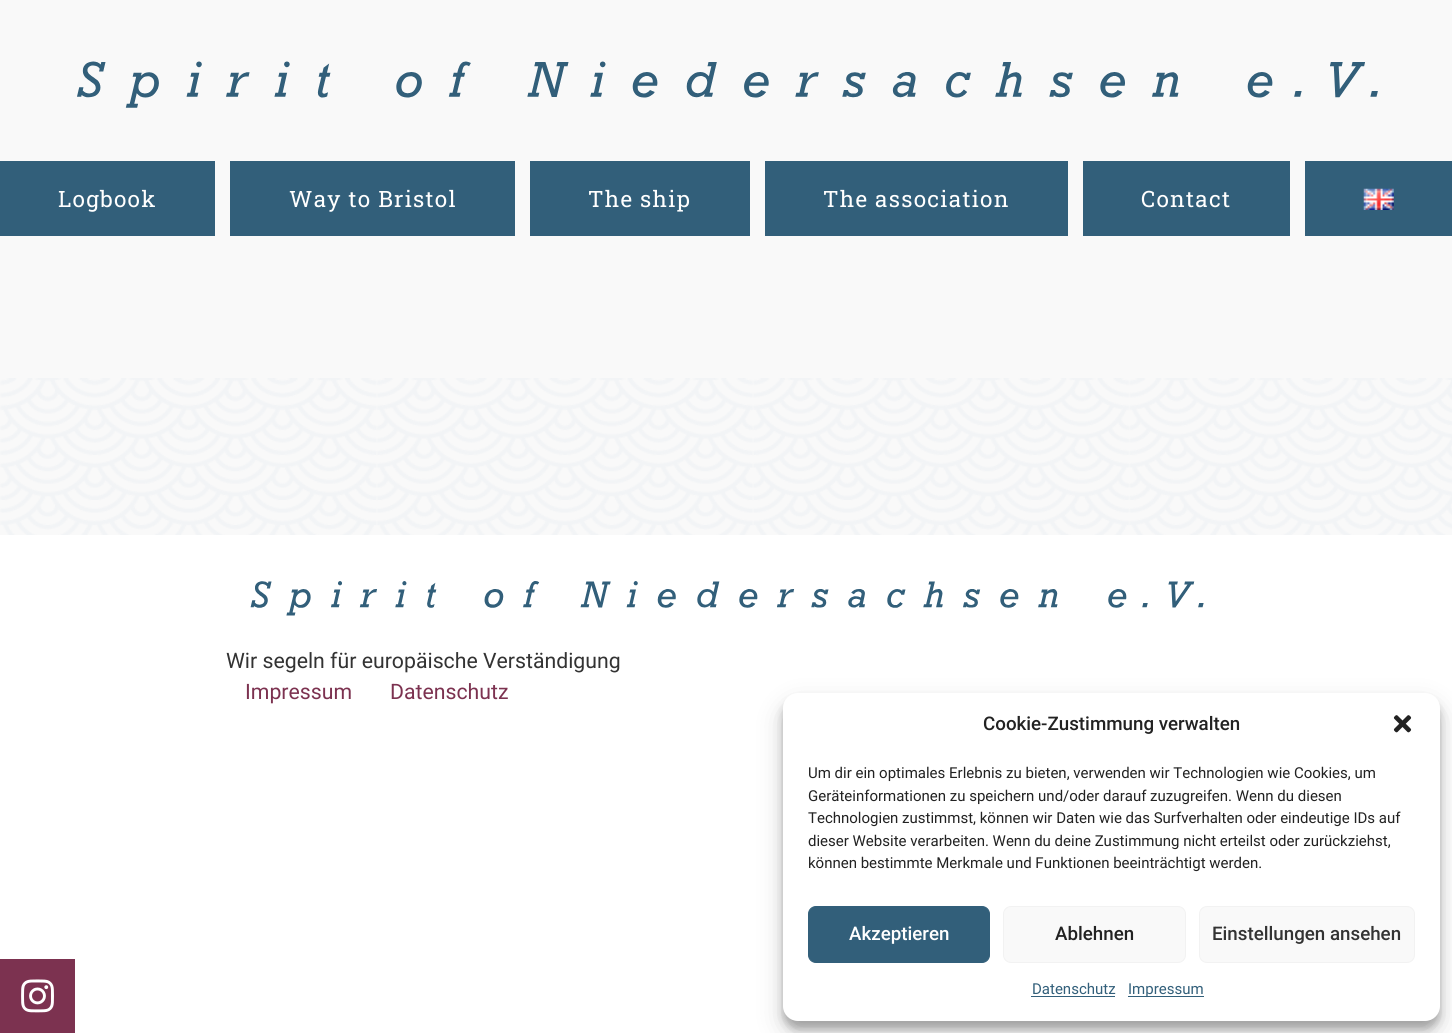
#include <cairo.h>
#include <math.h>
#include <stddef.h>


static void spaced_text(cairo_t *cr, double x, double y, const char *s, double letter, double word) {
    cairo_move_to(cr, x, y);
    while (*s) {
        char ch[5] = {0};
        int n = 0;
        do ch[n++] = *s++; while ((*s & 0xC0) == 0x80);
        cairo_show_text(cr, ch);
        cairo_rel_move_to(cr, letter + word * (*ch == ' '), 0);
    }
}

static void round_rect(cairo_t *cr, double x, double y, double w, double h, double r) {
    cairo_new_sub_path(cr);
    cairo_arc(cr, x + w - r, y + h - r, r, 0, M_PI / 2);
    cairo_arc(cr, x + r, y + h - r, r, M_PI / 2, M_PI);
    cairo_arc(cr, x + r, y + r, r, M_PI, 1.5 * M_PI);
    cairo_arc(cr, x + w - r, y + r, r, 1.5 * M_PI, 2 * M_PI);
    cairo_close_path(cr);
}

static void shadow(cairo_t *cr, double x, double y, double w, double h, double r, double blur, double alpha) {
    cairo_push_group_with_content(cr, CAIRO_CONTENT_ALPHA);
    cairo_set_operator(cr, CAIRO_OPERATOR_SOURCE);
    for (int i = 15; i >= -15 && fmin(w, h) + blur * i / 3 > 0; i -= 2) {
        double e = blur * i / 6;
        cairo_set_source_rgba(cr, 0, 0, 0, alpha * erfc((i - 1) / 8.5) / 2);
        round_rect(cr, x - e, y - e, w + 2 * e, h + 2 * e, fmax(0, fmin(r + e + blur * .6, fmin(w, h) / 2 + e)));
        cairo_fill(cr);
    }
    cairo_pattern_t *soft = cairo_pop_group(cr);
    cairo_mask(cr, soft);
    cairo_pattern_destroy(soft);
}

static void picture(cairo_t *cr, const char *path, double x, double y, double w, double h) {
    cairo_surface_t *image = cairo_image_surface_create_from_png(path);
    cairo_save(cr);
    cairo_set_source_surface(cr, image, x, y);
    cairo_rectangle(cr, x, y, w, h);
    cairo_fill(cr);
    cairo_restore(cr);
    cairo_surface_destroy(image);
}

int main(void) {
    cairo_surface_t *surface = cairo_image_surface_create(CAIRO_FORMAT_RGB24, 1452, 1033);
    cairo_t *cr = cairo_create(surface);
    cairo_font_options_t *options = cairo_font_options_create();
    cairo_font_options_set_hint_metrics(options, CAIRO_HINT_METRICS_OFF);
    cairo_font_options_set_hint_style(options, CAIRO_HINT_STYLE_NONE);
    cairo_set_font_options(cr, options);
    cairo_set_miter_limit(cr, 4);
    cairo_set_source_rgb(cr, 1, 1, 1);
    cairo_paint(cr);
    cairo_set_source_rgb(cr, 0.976, 0.976, 0.976);
    cairo_rectangle(cr, 0, 379, 1452, 156);
    cairo_fill(cr);
    cairo_set_source_rgb(cr, 0.973, 0.973, 0.973);
    cairo_rectangle(cr, 0, 0, 1452, 18);
    cairo_fill(cr);
    cairo_set_source_rgb(cr, 0.486, 0.196, 0.314);
    cairo_rectangle(cr, 0, 959, 75, 74);
    cairo_fill(cr);
    picture(cr, "img1.png", 21, 979, 33, 34);
    cairo_set_source_rgb(cr, 0.973, 0.973, 0.973);
    cairo_rectangle(cr, 0, 18, 1452, 361);
    cairo_fill(cr);
    picture(cr, "img2.png", 77, 61, 1301, 47);
    cairo_set_source_rgb(cr, 0.196, 0.373, 0.478);
    cairo_rectangle(cr, 0, 161, 1452, 75);
    cairo_fill(cr);
    cairo_select_font_face(cr, "Roboto Slab", CAIRO_FONT_SLANT_NORMAL, CAIRO_FONT_WEIGHT_NORMAL);
    cairo_set_font_size(cr, 22.5);
    cairo_set_source_rgb(cr, 1, 1, 1);
    spaced_text(cr, 58, 207, "Logbook", 1.25, 0);
    cairo_set_source_rgb(cr, 0.973, 0.973, 0.973);
    cairo_rectangle(cr, 215, 161, 15, 75);
    cairo_fill(cr);
    cairo_set_source_rgb(cr, 1, 1, 1);
    spaced_text(cr, 289, 207, "Way to Bristol", 1.25, 0);
    cairo_set_source_rgb(cr, 0.973, 0.973, 0.973);
    cairo_rectangle(cr, 515, 161, 15, 75);
    cairo_fill(cr);
    cairo_set_source_rgb(cr, 1, 1, 1);
    spaced_text(cr, 588, 207, "The ship", 1.25, 0);
    cairo_set_source_rgb(cr, 0.973, 0.973, 0.973);
    cairo_rectangle(cr, 750, 161, 15, 75);
    cairo_fill(cr);
    cairo_set_source_rgb(cr, 1, 1, 1);
    spaced_text(cr, 823, 207, "The association", 1.25, 0);
    cairo_set_source_rgb(cr, 0.973, 0.973, 0.973);
    cairo_rectangle(cr, 1068, 161, 15, 75);
    cairo_fill(cr);
    cairo_set_source_rgb(cr, 1, 1, 1);
    spaced_text(cr, 1141, 207, "Contact", 1.25, 0);
    cairo_set_source_rgb(cr, 0.973, 0.973, 0.973);
    cairo_rectangle(cr, 1290, 161, 15, 75);
    cairo_fill(cr);
    picture(cr, "img3.png", 1363, 188, 31, 22);
    picture(cr, "img4.png", 0, 378, 1452, 157);
    picture(cr, "img5.png", 250, 581, 954, 35);
    cairo_select_font_face(cr, "Roboto", CAIRO_FONT_SLANT_NORMAL, CAIRO_FONT_WEIGHT_NORMAL);
    cairo_set_font_size(cr, 21.25);
    cairo_set_source_rgb(cr, 0.2, 0.2, 0.2);
    cairo_move_to(cr, 226, 668);
    cairo_show_text(cr, "Wir segeln für europäische Verständigung");
    cairo_set_source_rgb(cr, 0.486, 0.196, 0.314);
    cairo_move_to(cr, 245, 699);
    cairo_show_text(cr, "Impressum");
    cairo_move_to(cr, 390, 699);
    cairo_show_text(cr, "Datenschutz");
    cairo_set_source_rgb(cr, 0, 0, 0);
    shadow(cr, 783, 700, 657, 329, 15, 4, 0.23);
    shadow(cr, 783, 705, 657, 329, 15, 12.5, 0.19);
    cairo_set_source_rgb(cr, 1, 1, 1);
    round_rect(cr, 783, 693, 657, 328, 15);
    cairo_fill(cr);
    cairo_select_font_face(cr, "Roboto Medium", CAIRO_FONT_SLANT_NORMAL, CAIRO_FONT_WEIGHT_NORMAL);
    cairo_set_font_size(cr, 18.75);
    cairo_set_source_rgb(cr, 0.133, 0.133, 0.133);
    cairo_move_to(cr, 983, 730);
    cairo_show_text(cr, "Cookie-Zustimmung verwalten");
    picture(cr, "img6.png", 1393, 715, 19, 18);
    cairo_select_font_face(cr, "Roboto", CAIRO_FONT_SLANT_NORMAL, CAIRO_FONT_WEIGHT_NORMAL);
    cairo_set_font_size(cr, 15);
    cairo_move_to(cr, 808, 778);
    cairo_show_text(cr, "Um dir ein optimales Erlebnis zu bieten, verwenden wir Technologien wie Cookies, um");
    cairo_move_to(cr, 808, 801);
    cairo_show_text(cr, "Geräteinformationen zu speichern und/oder darauf zuzugreifen. Wenn du diesen");
    cairo_move_to(cr, 808, 823);
    cairo_show_text(cr, "Technologien zustimmst, können wir Daten wie das Surfverhalten oder eindeutige IDs auf");
    cairo_move_to(cr, 808, 846);
    cairo_show_text(cr, "dieser Website verarbeiten. Wenn du deine Zustimmung nicht erteilst oder zurückziehst,");
    cairo_move_to(cr, 808, 868);
    cairo_show_text(cr, "können bestimmte Merkmale und Funktionen beeinträchtigt werden.");
    cairo_set_source_rgb(cr, 0.196, 0.373, 0.478);
    round_rect(cr, 808.5, 906.5, 181, 56, 7.5);
    cairo_fill_preserve(cr);
    cairo_set_line_width(cr, 1);
    cairo_stroke(cr);
    cairo_select_font_face(cr, "Roboto Medium", CAIRO_FONT_SLANT_NORMAL, CAIRO_FONT_WEIGHT_NORMAL);
    cairo_set_font_size(cr, 18.75);
    cairo_set_source_rgb(cr, 1, 1, 1);
    cairo_move_to(cr, 849, 940);
    cairo_show_text(cr, "Akzeptieren");
    cairo_set_source_rgb(cr, 0.976, 0.976, 0.976);
    round_rect(cr, 1003.5, 906.5, 182, 56, 7.5);
    cairo_fill_preserve(cr);
    cairo_set_source_rgb(cr, 0.949, 0.949, 0.949);
    cairo_stroke(cr);
    cairo_set_source_rgb(cr, 0.133, 0.133, 0.133);
    cairo_move_to(cr, 1055, 940);
    cairo_show_text(cr, "Ablehnen");
    cairo_set_source_rgb(cr, 0.976, 0.976, 0.976);
    round_rect(cr, 1199.5, 906.5, 215, 56, 7.5);
    cairo_fill_preserve(cr);
    cairo_set_source_rgb(cr, 0.949, 0.949, 0.949);
    cairo_stroke(cr);
    cairo_set_source_rgb(cr, 0.2, 0.2, 0.2);
    cairo_move_to(cr, 1212, 940);
    cairo_show_text(cr, "Einstellungen ansehen");
    cairo_select_font_face(cr, "Roboto", CAIRO_FONT_SLANT_NORMAL, CAIRO_FONT_WEIGHT_NORMAL);
    cairo_set_font_size(cr, 15);
    cairo_set_source_rgb(cr, 0.196, 0.373, 0.478);
    cairo_move_to(cr, 1032, 994);
    cairo_show_text(cr, "Datenschutz");
    cairo_rectangle(cr, 1031, 996, 84, 1);
    cairo_fill(cr);
    cairo_rectangle(cr, 1128, 996, 76, 1);
    cairo_fill(cr);
    cairo_move_to(cr, 1128, 994);
    cairo_show_text(cr, "Impressum");
    cairo_surface_write_to_png(surface, "page.png");
    cairo_font_options_destroy(options);
    cairo_destroy(cr);
    cairo_surface_destroy(surface);
    return 0;
}
